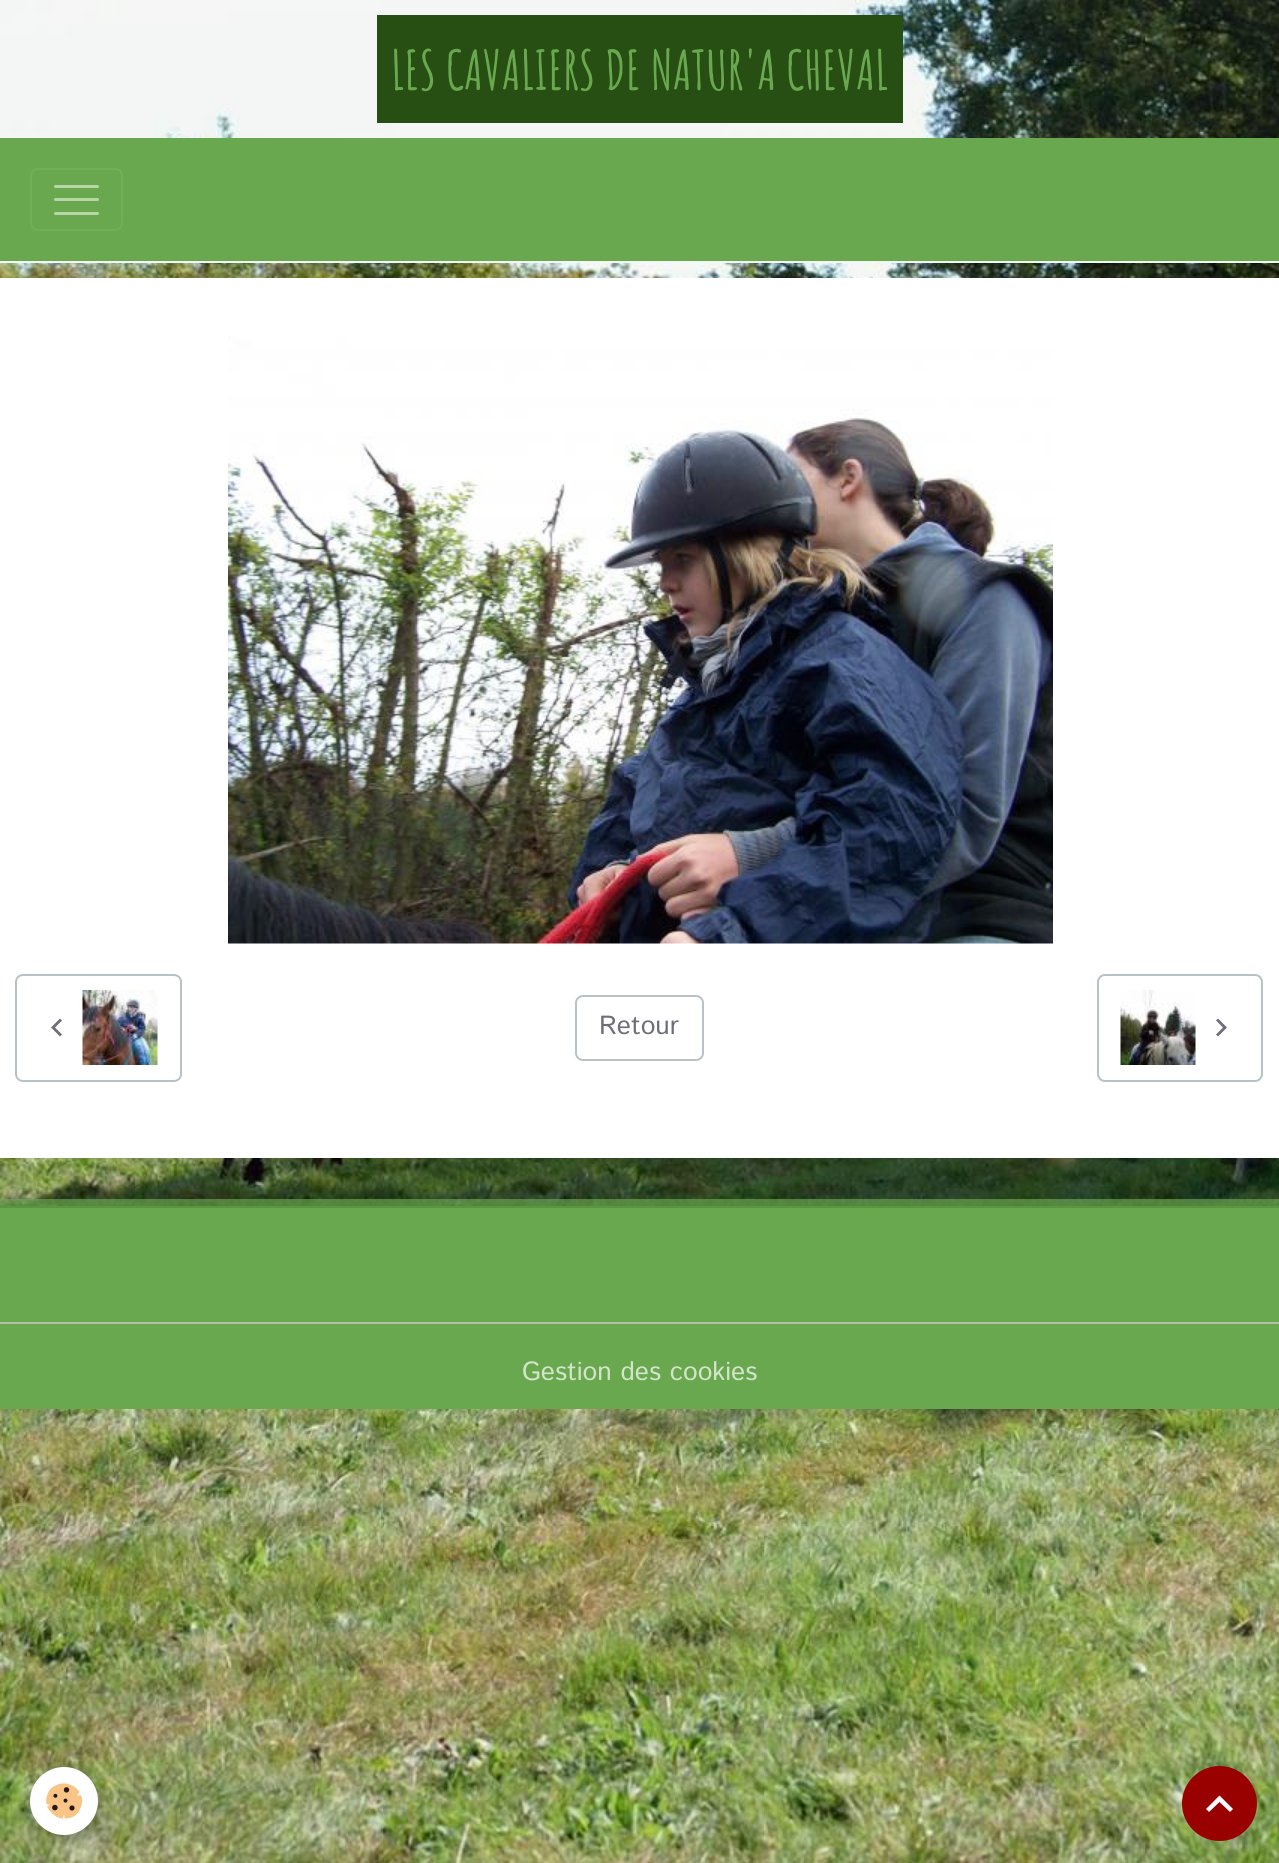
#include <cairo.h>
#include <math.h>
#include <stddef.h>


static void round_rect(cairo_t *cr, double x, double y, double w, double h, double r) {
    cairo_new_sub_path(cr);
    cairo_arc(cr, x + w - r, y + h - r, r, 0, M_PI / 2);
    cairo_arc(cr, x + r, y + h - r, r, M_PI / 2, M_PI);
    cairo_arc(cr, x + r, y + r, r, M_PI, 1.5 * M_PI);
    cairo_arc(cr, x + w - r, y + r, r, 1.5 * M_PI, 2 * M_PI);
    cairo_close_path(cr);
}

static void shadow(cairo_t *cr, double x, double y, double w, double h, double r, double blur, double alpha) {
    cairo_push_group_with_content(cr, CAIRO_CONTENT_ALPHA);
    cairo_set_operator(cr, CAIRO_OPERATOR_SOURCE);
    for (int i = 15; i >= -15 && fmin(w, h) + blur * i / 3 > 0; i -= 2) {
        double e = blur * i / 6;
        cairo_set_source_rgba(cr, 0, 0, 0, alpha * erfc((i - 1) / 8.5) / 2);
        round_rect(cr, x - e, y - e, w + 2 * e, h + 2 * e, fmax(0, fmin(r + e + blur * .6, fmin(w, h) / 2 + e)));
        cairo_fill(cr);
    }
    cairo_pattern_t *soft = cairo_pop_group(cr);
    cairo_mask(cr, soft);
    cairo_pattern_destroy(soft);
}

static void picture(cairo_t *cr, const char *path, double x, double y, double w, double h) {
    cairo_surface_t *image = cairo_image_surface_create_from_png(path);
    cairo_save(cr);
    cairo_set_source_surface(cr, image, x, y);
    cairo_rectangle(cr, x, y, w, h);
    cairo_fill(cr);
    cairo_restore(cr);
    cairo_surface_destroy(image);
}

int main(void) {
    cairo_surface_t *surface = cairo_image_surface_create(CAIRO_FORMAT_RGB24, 1279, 1863);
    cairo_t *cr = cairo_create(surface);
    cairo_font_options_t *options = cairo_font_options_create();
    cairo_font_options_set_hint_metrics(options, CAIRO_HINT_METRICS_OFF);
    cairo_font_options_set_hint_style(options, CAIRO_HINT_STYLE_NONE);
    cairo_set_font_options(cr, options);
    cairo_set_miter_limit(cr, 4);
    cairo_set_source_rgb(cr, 1, 1, 1);
    cairo_paint(cr);
    picture(cr, "img1.png", 0, 0, 1279, 1863);
    cairo_set_source_rgb(cr, 0.153, 0.306, 0.075);
    cairo_rectangle(cr, 377, 15, 526, 108);
    cairo_fill(cr);
    cairo_select_font_face(cr, "Amatic SC", CAIRO_FONT_SLANT_NORMAL, CAIRO_FONT_WEIGHT_BOLD);
    cairo_set_font_size(cr, 54);
    cairo_set_source_rgb(cr, 0.416, 0.659, 0.31);
    cairo_move_to(cr, 391, 90);
    cairo_show_text(cr, "LES CAVALIERS DE NATUR'A CHEVAL");
    cairo_rectangle(cr, 0, 138, 1279, 123);
    cairo_fill(cr);
    cairo_set_source_rgb(cr, 0.953, 0.965, 0.957);
    cairo_rectangle(cr, 0, 261, 1279, 2);
    cairo_fill(cr);
    round_rect(cr, 31, 169, 91, 61, 7);
    cairo_set_source_rgb(cr, 0.447, 0.678, 0.345);
    cairo_stroke(cr);
    cairo_set_source_rgb(cr, 0.714, 0.843, 0.659);
    round_rect(cr, 54, 185, 45, 3, 1.5);
    cairo_fill(cr);
    round_rect(cr, 54, 198, 45, 3, 1.5);
    cairo_fill(cr);
    round_rect(cr, 54, 212, 45, 3, 1.5);
    cairo_fill(cr);
    cairo_set_source_rgb(cr, 1, 1, 1);
    cairo_rectangle(cr, 0, 278, 1279, 880);
    cairo_fill(cr);
    picture(cr, "img2.png", 228, 336, 825, 608);
    round_rect(cr, 16, 975, 165, 106, 7);
    cairo_set_source_rgb(cr, 0.714, 0.761, 0.773);
    cairo_stroke(cr);
    cairo_set_source_rgb(cr, 0.427, 0.431, 0.471);
    cairo_new_path(cr);
    cairo_move_to(cr, 62, 1020.5);
    cairo_line_to(cr, 55, 1027.5);
    cairo_line_to(cr, 62, 1034.5);
    cairo_line_to(cr, 60, 1036.5);
    cairo_line_to(cr, 51, 1027.5);
    cairo_line_to(cr, 60, 1018.5);
    cairo_close_path(cr);
    cairo_fill(cr);
    picture(cr, "img3.png", 82, 990, 76, 75);
    round_rect(cr, 576, 996, 127, 64, 7);
    cairo_set_source_rgb(cr, 0.714, 0.761, 0.773);
    cairo_stroke(cr);
    cairo_select_font_face(cr, "Istok Web", CAIRO_FONT_SLANT_NORMAL, CAIRO_FONT_WEIGHT_NORMAL);
    cairo_set_font_size(cr, 26.25);
    cairo_set_source_rgb(cr, 0.427, 0.431, 0.471);
    cairo_move_to(cr, 599, 1034);
    cairo_show_text(cr, "Retour");
    round_rect(cr, 1098, 975, 164, 106, 7);
    cairo_set_source_rgb(cr, 0.714, 0.761, 0.773);
    cairo_stroke(cr);
    picture(cr, "img4.png", 1120, 990, 76, 75);
    cairo_set_source_rgb(cr, 0.427, 0.431, 0.471);
    cairo_new_path(cr);
    cairo_move_to(cr, 1218, 1018.5);
    cairo_line_to(cr, 1227, 1027.5);
    cairo_line_to(cr, 1218, 1036.5);
    cairo_line_to(cr, 1216, 1034.5);
    cairo_line_to(cr, 1223, 1027.5);
    cairo_line_to(cr, 1216, 1020.5);
    cairo_close_path(cr);
    cairo_fill(cr);
    cairo_set_source_rgb(cr, 0.416, 0.659, 0.31);
    cairo_rectangle(cr, 0, 1208, 1279, 201);
    cairo_fill(cr);
    cairo_set_source_rgb(cr, 0.22, 0.463, 0.114);
    cairo_rectangle(cr, 0, 1206, 1279, 2);
    cairo_fill(cr);
    cairo_set_source_rgba(cr, 0.416, 0.659, 0.31, 0.66);
    cairo_rectangle(cr, 0, 1199, 1279, 9);
    cairo_fill(cr);
    cairo_set_source_rgb(cr, 0.686, 0.757, 0.655);
    cairo_rectangle(cr, 0, 1322, 1279, 2);
    cairo_fill(cr);
    cairo_set_source_rgb(cr, 0.824, 0.898, 0.792);
    cairo_move_to(cr, 522, 1380);
    cairo_show_text(cr, "Gestion des cookies");
    cairo_set_source_rgb(cr, 0, 0, 0);
    shadow(cr, 30, 1772, 68, 67, 33.5, 7.5, 0.24);
    cairo_set_source_rgb(cr, 1, 1, 1);
    cairo_arc(cr, 64, 1801, 34, 0, 2 * M_PI);
    cairo_fill(cr);
    picture(cr, "img5.png", 46, 1783, 37, 36);
    cairo_set_source_rgb(cr, 0.6, 0, 0);
    cairo_arc(cr, 1219.5, 1803.5, 37.5, 0, 2 * M_PI);
    cairo_fill(cr);
    cairo_set_source_rgb(cr, 1, 1, 1);
    cairo_new_path(cr);
    cairo_move_to(cr, 1219.5, 1795.5);
    cairo_line_to(cr, 1233, 1809);
    cairo_line_to(cr, 1230, 1812);
    cairo_line_to(cr, 1219.5, 1802);
    cairo_line_to(cr, 1209, 1812);
    cairo_line_to(cr, 1206, 1809);
    cairo_close_path(cr);
    cairo_fill(cr);
    cairo_surface_write_to_png(surface, "page.png");
    cairo_font_options_destroy(options);
    cairo_destroy(cr);
    cairo_surface_destroy(surface);
    return 0;
}
